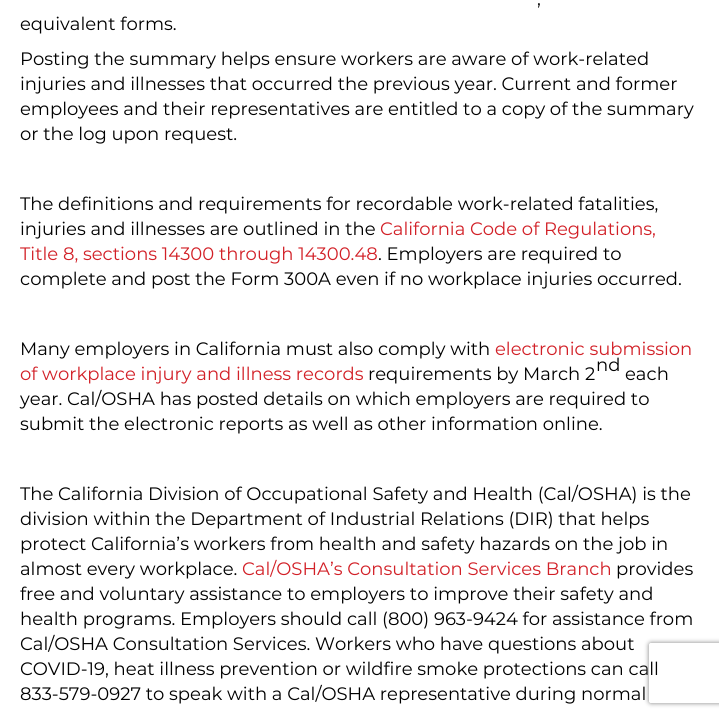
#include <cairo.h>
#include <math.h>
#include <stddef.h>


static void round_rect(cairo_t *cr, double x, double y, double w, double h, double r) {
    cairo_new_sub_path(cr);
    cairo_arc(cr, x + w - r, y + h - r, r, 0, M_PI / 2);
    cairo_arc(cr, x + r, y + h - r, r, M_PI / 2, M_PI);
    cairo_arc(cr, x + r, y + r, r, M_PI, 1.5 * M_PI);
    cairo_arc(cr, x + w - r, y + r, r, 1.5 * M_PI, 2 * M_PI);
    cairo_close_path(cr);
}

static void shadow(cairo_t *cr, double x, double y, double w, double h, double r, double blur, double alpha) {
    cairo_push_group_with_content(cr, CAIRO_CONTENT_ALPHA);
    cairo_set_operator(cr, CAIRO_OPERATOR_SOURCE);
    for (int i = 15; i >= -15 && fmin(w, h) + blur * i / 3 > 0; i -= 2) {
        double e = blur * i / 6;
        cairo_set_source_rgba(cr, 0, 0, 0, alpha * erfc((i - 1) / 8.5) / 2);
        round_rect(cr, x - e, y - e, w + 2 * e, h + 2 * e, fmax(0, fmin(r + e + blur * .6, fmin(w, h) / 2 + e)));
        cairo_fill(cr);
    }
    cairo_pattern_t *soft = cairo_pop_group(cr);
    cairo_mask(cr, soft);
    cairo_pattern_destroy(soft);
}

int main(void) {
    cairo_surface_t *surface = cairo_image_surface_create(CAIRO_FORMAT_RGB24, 719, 717);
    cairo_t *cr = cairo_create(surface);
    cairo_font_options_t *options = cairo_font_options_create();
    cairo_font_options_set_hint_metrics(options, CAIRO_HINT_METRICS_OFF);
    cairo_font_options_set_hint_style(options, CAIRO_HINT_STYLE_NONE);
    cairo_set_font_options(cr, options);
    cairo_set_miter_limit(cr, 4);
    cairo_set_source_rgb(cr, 1, 1, 1);
    cairo_paint(cr);
    cairo_select_font_face(cr, "Montserrat", CAIRO_FONT_SLANT_NORMAL, CAIRO_FONT_WEIGHT_NORMAL);
    cairo_set_font_size(cr, 18);
    cairo_set_source_rgb(cr, 0, 0, 0);
    cairo_move_to(cr, 537, 5);
    cairo_show_text(cr, ",");
    cairo_move_to(cr, 20, 30);
    cairo_show_text(cr, "equivalent forms.");
    cairo_move_to(cr, 20, 65);
    cairo_show_text(cr, "Posting the summary helps ensure workers are aware of work-related");
    cairo_move_to(cr, 20, 90);
    cairo_show_text(cr, "injuries and illnesses that occurred the previous year. Current and former");
    cairo_move_to(cr, 20, 115);
    cairo_show_text(cr, "employees and their representatives are entitled to a copy of the summary");
    cairo_move_to(cr, 20, 140);
    cairo_show_text(cr, "or the log upon request.");
    cairo_move_to(cr, 20, 210);
    cairo_show_text(cr, "The definitions and requirements for recordable work-related fatalities,");
    cairo_move_to(cr, 20, 235);
    cairo_show_text(cr, "injuries and illnesses are outlined in the");
    cairo_set_source_rgb(cr, 0.824, 0.125, 0.153);
    cairo_move_to(cr, 380, 235);
    cairo_show_text(cr, "California Code of Regulations,");
    cairo_move_to(cr, 20, 260);
    cairo_show_text(cr, "Title 8, sections 14300 through 14300.48");
    cairo_set_source_rgb(cr, 0, 0, 0);
    cairo_move_to(cr, 378, 260);
    cairo_show_text(cr, ". Employers are required to");
    cairo_move_to(cr, 20, 285);
    cairo_show_text(cr, "complete and post the Form 300A even if no workplace injuries occurred.");
    cairo_move_to(cr, 20, 355);
    cairo_show_text(cr, "Many employers in California must also comply with");
    cairo_set_source_rgb(cr, 0.824, 0.125, 0.153);
    cairo_move_to(cr, 495, 355);
    cairo_show_text(cr, "electronic submission");
    cairo_set_source_rgb(cr, 0, 0, 0);
    cairo_move_to(cr, 596, 371);
    cairo_show_text(cr, "nd");
    cairo_set_source_rgb(cr, 0.824, 0.125, 0.153);
    cairo_move_to(cr, 20, 380);
    cairo_show_text(cr, "of workplace injury and illness records");
    cairo_set_source_rgb(cr, 0, 0, 0);
    cairo_move_to(cr, 368, 380);
    cairo_show_text(cr, "requirements by March 2");
    cairo_move_to(cr, 625, 380);
    cairo_show_text(cr, "each");
    cairo_move_to(cr, 20, 405);
    cairo_show_text(cr, "year. Cal/OSHA has posted details on which employers are required to");
    cairo_move_to(cr, 20, 430);
    cairo_show_text(cr, "submit the electronic reports as well as other information online.");
    cairo_move_to(cr, 20, 500);
    cairo_show_text(cr, "The California Division of Occupational Safety and Health (Cal/OSHA) is the");
    cairo_move_to(cr, 20, 525);
    cairo_show_text(cr, "division within the Department of Industrial Relations (DIR) that helps");
    cairo_move_to(cr, 20, 550);
    cairo_show_text(cr, "protect California’s workers from health and safety hazards on the job in");
    cairo_move_to(cr, 20, 575);
    cairo_show_text(cr, "almost every workplace.");
    cairo_set_source_rgb(cr, 0.824, 0.125, 0.153);
    cairo_move_to(cr, 242, 575);
    cairo_show_text(cr, "Cal/OSHA’s Consultation Services Branch");
    cairo_set_source_rgb(cr, 0, 0, 0);
    cairo_move_to(cr, 616, 575);
    cairo_show_text(cr, "provides");
    cairo_move_to(cr, 20, 600);
    cairo_show_text(cr, "free and voluntary assistance to employers to improve their safety and");
    cairo_move_to(cr, 20, 625);
    cairo_show_text(cr, "health programs. Employers should call (800) 963-9424 for assistance from");
    cairo_move_to(cr, 20, 650);
    cairo_show_text(cr, "Cal/OSHA Consultation Services. Workers who have questions about");
    cairo_move_to(cr, 20, 675);
    cairo_show_text(cr, "COVID-19, heat illness prevention or wildfire smoke protections can call");
    cairo_move_to(cr, 20, 700);
    cairo_show_text(cr, "833-579-0927 to speak with a Cal/OSHA representative during normal");
    cairo_save(cr);
    cairo_set_fill_rule(cr, CAIRO_FILL_RULE_EVEN_ODD);
    cairo_new_path(cr);
    cairo_move_to(cr, 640, 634);
    cairo_line_to(cr, 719, 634);
    cairo_line_to(cr, 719, 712);
    cairo_line_to(cr, 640, 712);
    cairo_close_path(cr);
    cairo_move_to(cr, 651, 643);
    cairo_line_to(cr, 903, 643);
    cairo_curve_to(cr, 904, 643, 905, 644, 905, 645);
    cairo_line_to(cr, 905, 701);
    cairo_curve_to(cr, 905, 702, 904, 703, 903, 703);
    cairo_line_to(cr, 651, 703);
    cairo_curve_to(cr, 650, 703, 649, 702, 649, 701);
    cairo_line_to(cr, 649, 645);
    cairo_curve_to(cr, 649, 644, 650, 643, 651, 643);
    cairo_close_path(cr);
    cairo_clip(cr);
    cairo_set_source_rgb(cr, 0.502, 0.502, 0.502);
    shadow(cr, 649, 643, 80, 60, 2, 2.5, 1);
    cairo_restore(cr);
    cairo_surface_write_to_png(surface, "page.png");
    cairo_font_options_destroy(options);
    cairo_destroy(cr);
    cairo_surface_destroy(surface);
    return 0;
}
